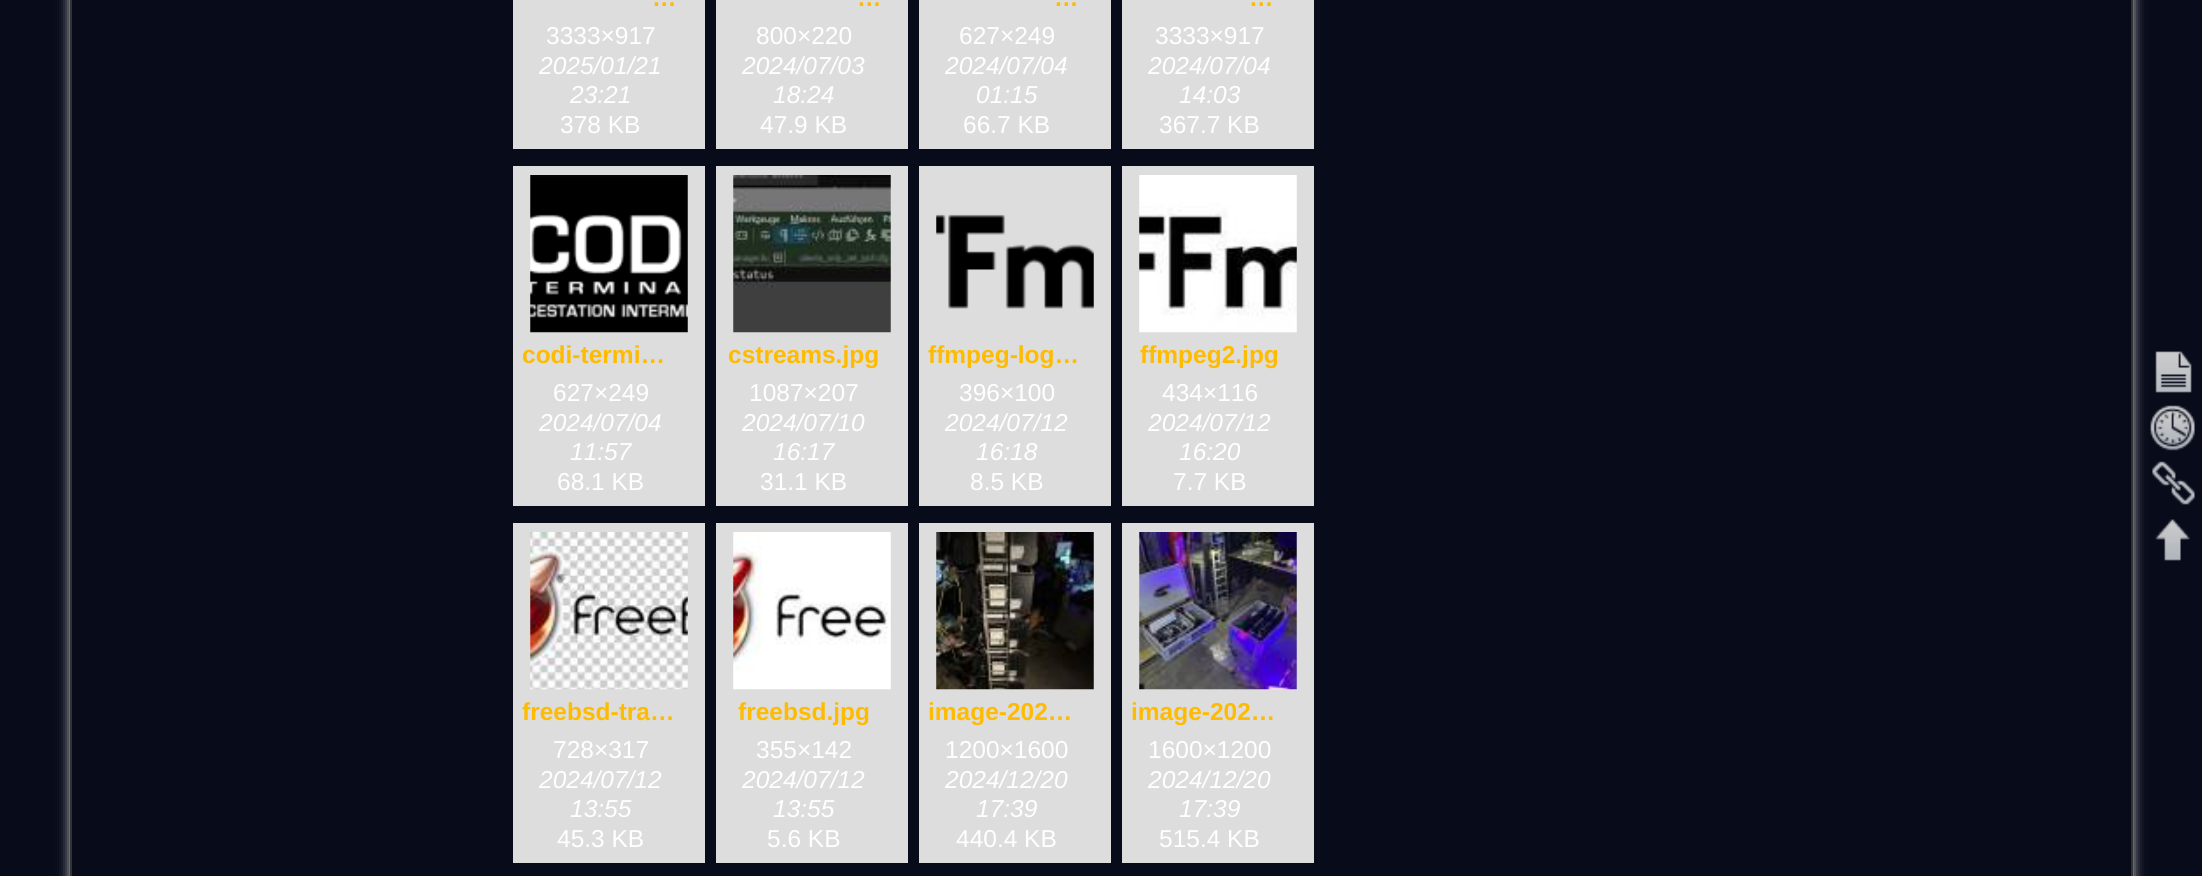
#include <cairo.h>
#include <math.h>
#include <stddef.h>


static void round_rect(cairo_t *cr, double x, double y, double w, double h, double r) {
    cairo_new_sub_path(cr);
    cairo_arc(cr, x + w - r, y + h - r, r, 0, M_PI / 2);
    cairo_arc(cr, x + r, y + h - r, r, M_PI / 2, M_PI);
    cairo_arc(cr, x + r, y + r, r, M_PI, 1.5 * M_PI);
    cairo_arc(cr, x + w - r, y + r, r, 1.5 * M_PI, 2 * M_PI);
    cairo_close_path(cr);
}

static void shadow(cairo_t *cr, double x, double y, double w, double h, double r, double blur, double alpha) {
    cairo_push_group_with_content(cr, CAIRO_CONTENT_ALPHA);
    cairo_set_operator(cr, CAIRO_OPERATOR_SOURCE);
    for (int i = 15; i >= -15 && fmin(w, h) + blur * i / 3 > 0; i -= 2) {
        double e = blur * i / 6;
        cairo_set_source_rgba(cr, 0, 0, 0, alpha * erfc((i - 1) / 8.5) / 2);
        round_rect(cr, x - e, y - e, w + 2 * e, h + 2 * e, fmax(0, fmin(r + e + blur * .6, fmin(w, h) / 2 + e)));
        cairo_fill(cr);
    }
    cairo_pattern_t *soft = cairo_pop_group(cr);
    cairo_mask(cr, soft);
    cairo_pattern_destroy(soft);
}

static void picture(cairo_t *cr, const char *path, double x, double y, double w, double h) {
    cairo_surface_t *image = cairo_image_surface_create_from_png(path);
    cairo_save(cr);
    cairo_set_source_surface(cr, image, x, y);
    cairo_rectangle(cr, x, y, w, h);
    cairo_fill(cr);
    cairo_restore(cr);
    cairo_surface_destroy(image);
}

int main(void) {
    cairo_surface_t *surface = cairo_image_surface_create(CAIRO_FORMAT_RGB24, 2202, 876);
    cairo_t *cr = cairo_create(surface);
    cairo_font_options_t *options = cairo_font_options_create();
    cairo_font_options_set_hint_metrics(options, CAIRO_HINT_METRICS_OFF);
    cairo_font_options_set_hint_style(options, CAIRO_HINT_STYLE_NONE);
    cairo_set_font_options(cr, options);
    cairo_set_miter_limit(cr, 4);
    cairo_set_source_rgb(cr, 0.031, 0.043, 0.102);
    cairo_paint(cr);
    cairo_save(cr);
    cairo_set_fill_rule(cr, CAIRO_FILL_RULE_EVEN_ODD);
    cairo_new_path(cr);
    cairo_move_to(cr, 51, 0);
    cairo_line_to(cr, 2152, 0);
    cairo_line_to(cr, 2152, 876);
    cairo_line_to(cr, 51, 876);
    cairo_close_path(cr);
    cairo_move_to(cr, 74, -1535);
    cairo_line_to(cr, 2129, -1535);
    cairo_curve_to(cr, 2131, -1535, 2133, -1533, 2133, -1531);
    cairo_line_to(cr, 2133, 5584);
    cairo_curve_to(cr, 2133, 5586, 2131, 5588, 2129, 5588);
    cairo_line_to(cr, 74, 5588);
    cairo_curve_to(cr, 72, 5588, 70, 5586, 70, 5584);
    cairo_line_to(cr, 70, -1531);
    cairo_curve_to(cr, 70, -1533, 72, -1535, 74, -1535);
    cairo_close_path(cr);
    cairo_clip(cr);
    cairo_set_source_rgb(cr, 0.8, 0.8, 0.8);
    shadow(cr, 70, -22, 2063, 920, 4, 6, 1);
    cairo_restore(cr);
    cairo_rectangle(cr, 71, -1, 2061, 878);
    cairo_set_source_rgb(cr, 0.2, 0.2, 0.2);
    cairo_stroke(cr);
    cairo_set_source_rgb(cr, 0.867, 0.867, 0.867);
    cairo_rectangle(cr, 513, 0, 192, 149);
    cairo_fill(cr);
    cairo_select_font_face(cr, "Liberation Sans", CAIRO_FONT_SLANT_NORMAL, CAIRO_FONT_WEIGHT_BOLD);
    cairo_set_font_size(cr, 24.5);
    cairo_set_source_rgb(cr, 0.996, 0.733, 0);
    cairo_move_to(cr, 652, 6);
    cairo_show_text(cr, "…");
    cairo_select_font_face(cr, "Liberation Sans", CAIRO_FONT_SLANT_NORMAL, CAIRO_FONT_WEIGHT_NORMAL);
    cairo_set_source_rgb(cr, 1, 1, 1);
    cairo_move_to(cr, 546, 44);
    cairo_show_text(cr, "3333×917");
    cairo_select_font_face(cr, "Liberation Sans", CAIRO_FONT_SLANT_ITALIC, CAIRO_FONT_WEIGHT_NORMAL);
    cairo_move_to(cr, 539, 74);
    cairo_show_text(cr, "2025/01/21");
    cairo_move_to(cr, 570, 103);
    cairo_show_text(cr, "23:21");
    cairo_select_font_face(cr, "Liberation Sans", CAIRO_FONT_SLANT_NORMAL, CAIRO_FONT_WEIGHT_NORMAL);
    cairo_move_to(cr, 560, 133);
    cairo_show_text(cr, "378 KB");
    cairo_set_source_rgb(cr, 0.867, 0.867, 0.867);
    cairo_rectangle(cr, 716, 0, 192, 149);
    cairo_fill(cr);
    cairo_select_font_face(cr, "Liberation Sans", CAIRO_FONT_SLANT_NORMAL, CAIRO_FONT_WEIGHT_BOLD);
    cairo_set_source_rgb(cr, 0.996, 0.733, 0);
    cairo_move_to(cr, 857, 6);
    cairo_show_text(cr, "…");
    cairo_select_font_face(cr, "Liberation Sans", CAIRO_FONT_SLANT_NORMAL, CAIRO_FONT_WEIGHT_NORMAL);
    cairo_set_source_rgb(cr, 1, 1, 1);
    cairo_move_to(cr, 756, 44);
    cairo_show_text(cr, "800×220");
    cairo_select_font_face(cr, "Liberation Sans", CAIRO_FONT_SLANT_ITALIC, CAIRO_FONT_WEIGHT_NORMAL);
    cairo_move_to(cr, 742, 74);
    cairo_show_text(cr, "2024/07/03");
    cairo_move_to(cr, 773, 103);
    cairo_show_text(cr, "18:24");
    cairo_select_font_face(cr, "Liberation Sans", CAIRO_FONT_SLANT_NORMAL, CAIRO_FONT_WEIGHT_NORMAL);
    cairo_move_to(cr, 760, 133);
    cairo_show_text(cr, "47.9 KB");
    cairo_set_source_rgb(cr, 0.867, 0.867, 0.867);
    cairo_rectangle(cr, 919, 0, 192, 149);
    cairo_fill(cr);
    cairo_select_font_face(cr, "Liberation Sans", CAIRO_FONT_SLANT_NORMAL, CAIRO_FONT_WEIGHT_BOLD);
    cairo_set_source_rgb(cr, 0.996, 0.733, 0);
    cairo_move_to(cr, 1054, 6);
    cairo_show_text(cr, "…");
    cairo_select_font_face(cr, "Liberation Sans", CAIRO_FONT_SLANT_NORMAL, CAIRO_FONT_WEIGHT_NORMAL);
    cairo_set_source_rgb(cr, 1, 1, 1);
    cairo_move_to(cr, 959, 44);
    cairo_show_text(cr, "627×249");
    cairo_select_font_face(cr, "Liberation Sans", CAIRO_FONT_SLANT_ITALIC, CAIRO_FONT_WEIGHT_NORMAL);
    cairo_move_to(cr, 945, 74);
    cairo_show_text(cr, "2024/07/04");
    cairo_move_to(cr, 976, 103);
    cairo_show_text(cr, "01:15");
    cairo_select_font_face(cr, "Liberation Sans", CAIRO_FONT_SLANT_NORMAL, CAIRO_FONT_WEIGHT_NORMAL);
    cairo_move_to(cr, 963, 133);
    cairo_show_text(cr, "66.7 KB");
    cairo_set_source_rgb(cr, 0.867, 0.867, 0.867);
    cairo_rectangle(cr, 1122, 0, 192, 149);
    cairo_fill(cr);
    cairo_select_font_face(cr, "Liberation Sans", CAIRO_FONT_SLANT_NORMAL, CAIRO_FONT_WEIGHT_BOLD);
    cairo_set_source_rgb(cr, 0.996, 0.733, 0);
    cairo_move_to(cr, 1249, 6);
    cairo_show_text(cr, "…");
    cairo_select_font_face(cr, "Liberation Sans", CAIRO_FONT_SLANT_NORMAL, CAIRO_FONT_WEIGHT_NORMAL);
    cairo_set_source_rgb(cr, 1, 1, 1);
    cairo_move_to(cr, 1155, 44);
    cairo_show_text(cr, "3333×917");
    cairo_select_font_face(cr, "Liberation Sans", CAIRO_FONT_SLANT_ITALIC, CAIRO_FONT_WEIGHT_NORMAL);
    cairo_move_to(cr, 1148, 74);
    cairo_show_text(cr, "2024/07/04");
    cairo_move_to(cr, 1179, 103);
    cairo_show_text(cr, "14:03");
    cairo_select_font_face(cr, "Liberation Sans", CAIRO_FONT_SLANT_NORMAL, CAIRO_FONT_WEIGHT_NORMAL);
    cairo_move_to(cr, 1159, 133);
    cairo_show_text(cr, "367.7 KB");
    cairo_set_source_rgb(cr, 0.867, 0.867, 0.867);
    cairo_rectangle(cr, 513, 166, 192, 340);
    cairo_fill(cr);
    picture(cr, "img1.png", 530, 175, 158, 158);
    cairo_select_font_face(cr, "Liberation Sans", CAIRO_FONT_SLANT_NORMAL, CAIRO_FONT_WEIGHT_BOLD);
    cairo_set_source_rgb(cr, 0.996, 0.733, 0);
    cairo_move_to(cr, 522, 363);
    cairo_show_text(cr, "codi-termi…");
    cairo_select_font_face(cr, "Liberation Sans", CAIRO_FONT_SLANT_NORMAL, CAIRO_FONT_WEIGHT_NORMAL);
    cairo_set_source_rgb(cr, 1, 1, 1);
    cairo_move_to(cr, 553, 401);
    cairo_show_text(cr, "627×249");
    cairo_select_font_face(cr, "Liberation Sans", CAIRO_FONT_SLANT_ITALIC, CAIRO_FONT_WEIGHT_NORMAL);
    cairo_move_to(cr, 539, 431);
    cairo_show_text(cr, "2024/07/04");
    cairo_move_to(cr, 570, 460);
    cairo_show_text(cr, "11:57");
    cairo_select_font_face(cr, "Liberation Sans", CAIRO_FONT_SLANT_NORMAL, CAIRO_FONT_WEIGHT_NORMAL);
    cairo_move_to(cr, 557, 490);
    cairo_show_text(cr, "68.1 KB");
    cairo_set_source_rgb(cr, 0.867, 0.867, 0.867);
    cairo_rectangle(cr, 716, 166, 192, 340);
    cairo_fill(cr);
    picture(cr, "img2.png", 733, 175, 158, 158);
    cairo_select_font_face(cr, "Liberation Sans", CAIRO_FONT_SLANT_NORMAL, CAIRO_FONT_WEIGHT_BOLD);
    cairo_set_source_rgb(cr, 0.996, 0.733, 0);
    cairo_move_to(cr, 728, 363);
    cairo_show_text(cr, "cstreams.jpg");
    cairo_select_font_face(cr, "Liberation Sans", CAIRO_FONT_SLANT_NORMAL, CAIRO_FONT_WEIGHT_NORMAL);
    cairo_set_source_rgb(cr, 1, 1, 1);
    cairo_move_to(cr, 749, 401);
    cairo_show_text(cr, "1087×207");
    cairo_select_font_face(cr, "Liberation Sans", CAIRO_FONT_SLANT_ITALIC, CAIRO_FONT_WEIGHT_NORMAL);
    cairo_move_to(cr, 742, 431);
    cairo_show_text(cr, "2024/07/10");
    cairo_move_to(cr, 773, 460);
    cairo_show_text(cr, "16:17");
    cairo_select_font_face(cr, "Liberation Sans", CAIRO_FONT_SLANT_NORMAL, CAIRO_FONT_WEIGHT_NORMAL);
    cairo_move_to(cr, 760, 490);
    cairo_show_text(cr, "31.1 KB");
    cairo_set_source_rgb(cr, 0.867, 0.867, 0.867);
    cairo_rectangle(cr, 919, 166, 192, 340);
    cairo_fill(cr);
    picture(cr, "img3.png", 936, 214, 158, 95);
    cairo_select_font_face(cr, "Liberation Sans", CAIRO_FONT_SLANT_NORMAL, CAIRO_FONT_WEIGHT_BOLD);
    cairo_set_source_rgb(cr, 0.996, 0.733, 0);
    cairo_move_to(cr, 928, 363);
    cairo_show_text(cr, "ffmpeg-log…");
    cairo_select_font_face(cr, "Liberation Sans", CAIRO_FONT_SLANT_NORMAL, CAIRO_FONT_WEIGHT_NORMAL);
    cairo_set_source_rgb(cr, 1, 1, 1);
    cairo_move_to(cr, 959, 401);
    cairo_show_text(cr, "396×100");
    cairo_select_font_face(cr, "Liberation Sans", CAIRO_FONT_SLANT_ITALIC, CAIRO_FONT_WEIGHT_NORMAL);
    cairo_move_to(cr, 945, 431);
    cairo_show_text(cr, "2024/07/12");
    cairo_move_to(cr, 976, 460);
    cairo_show_text(cr, "16:18");
    cairo_select_font_face(cr, "Liberation Sans", CAIRO_FONT_SLANT_NORMAL, CAIRO_FONT_WEIGHT_NORMAL);
    cairo_move_to(cr, 970, 490);
    cairo_show_text(cr, "8.5 KB");
    cairo_set_source_rgb(cr, 0.867, 0.867, 0.867);
    cairo_rectangle(cr, 1122, 166, 192, 340);
    cairo_fill(cr);
    picture(cr, "img4.png", 1139, 175, 158, 158);
    cairo_select_font_face(cr, "Liberation Sans", CAIRO_FONT_SLANT_NORMAL, CAIRO_FONT_WEIGHT_BOLD);
    cairo_set_source_rgb(cr, 0.996, 0.733, 0);
    cairo_move_to(cr, 1140, 363);
    cairo_show_text(cr, "ffmpeg2.jpg");
    cairo_select_font_face(cr, "Liberation Sans", CAIRO_FONT_SLANT_NORMAL, CAIRO_FONT_WEIGHT_NORMAL);
    cairo_set_source_rgb(cr, 1, 1, 1);
    cairo_move_to(cr, 1162, 401);
    cairo_show_text(cr, "434×116");
    cairo_select_font_face(cr, "Liberation Sans", CAIRO_FONT_SLANT_ITALIC, CAIRO_FONT_WEIGHT_NORMAL);
    cairo_move_to(cr, 1148, 431);
    cairo_show_text(cr, "2024/07/12");
    cairo_move_to(cr, 1179, 460);
    cairo_show_text(cr, "16:20");
    cairo_select_font_face(cr, "Liberation Sans", CAIRO_FONT_SLANT_NORMAL, CAIRO_FONT_WEIGHT_NORMAL);
    cairo_move_to(cr, 1173, 490);
    cairo_show_text(cr, "7.7 KB");
    cairo_set_source_rgb(cr, 0.867, 0.867, 0.867);
    cairo_rectangle(cr, 513, 523, 192, 340);
    cairo_fill(cr);
    picture(cr, "img5.png", 530, 532, 158, 158);
    cairo_select_font_face(cr, "Liberation Sans", CAIRO_FONT_SLANT_NORMAL, CAIRO_FONT_WEIGHT_BOLD);
    cairo_set_source_rgb(cr, 0.996, 0.733, 0);
    cairo_move_to(cr, 522, 720);
    cairo_show_text(cr, "freebsd-tra…");
    cairo_select_font_face(cr, "Liberation Sans", CAIRO_FONT_SLANT_NORMAL, CAIRO_FONT_WEIGHT_NORMAL);
    cairo_set_source_rgb(cr, 1, 1, 1);
    cairo_move_to(cr, 553, 758);
    cairo_show_text(cr, "728×317");
    cairo_select_font_face(cr, "Liberation Sans", CAIRO_FONT_SLANT_ITALIC, CAIRO_FONT_WEIGHT_NORMAL);
    cairo_move_to(cr, 539, 788);
    cairo_show_text(cr, "2024/07/12");
    cairo_move_to(cr, 570, 817);
    cairo_show_text(cr, "13:55");
    cairo_select_font_face(cr, "Liberation Sans", CAIRO_FONT_SLANT_NORMAL, CAIRO_FONT_WEIGHT_NORMAL);
    cairo_move_to(cr, 557, 847);
    cairo_show_text(cr, "45.3 KB");
    cairo_set_source_rgb(cr, 0.867, 0.867, 0.867);
    cairo_rectangle(cr, 716, 523, 192, 340);
    cairo_fill(cr);
    picture(cr, "img6.png", 733, 532, 158, 158);
    cairo_select_font_face(cr, "Liberation Sans", CAIRO_FONT_SLANT_NORMAL, CAIRO_FONT_WEIGHT_BOLD);
    cairo_set_source_rgb(cr, 0.996, 0.733, 0);
    cairo_move_to(cr, 738, 720);
    cairo_show_text(cr, "freebsd.jpg");
    cairo_select_font_face(cr, "Liberation Sans", CAIRO_FONT_SLANT_NORMAL, CAIRO_FONT_WEIGHT_NORMAL);
    cairo_set_source_rgb(cr, 1, 1, 1);
    cairo_move_to(cr, 756, 758);
    cairo_show_text(cr, "355×142");
    cairo_select_font_face(cr, "Liberation Sans", CAIRO_FONT_SLANT_ITALIC, CAIRO_FONT_WEIGHT_NORMAL);
    cairo_move_to(cr, 742, 788);
    cairo_show_text(cr, "2024/07/12");
    cairo_move_to(cr, 773, 817);
    cairo_show_text(cr, "13:55");
    cairo_select_font_face(cr, "Liberation Sans", CAIRO_FONT_SLANT_NORMAL, CAIRO_FONT_WEIGHT_NORMAL);
    cairo_move_to(cr, 767, 847);
    cairo_show_text(cr, "5.6 KB");
    cairo_set_source_rgb(cr, 0.867, 0.867, 0.867);
    cairo_rectangle(cr, 919, 523, 192, 340);
    cairo_fill(cr);
    picture(cr, "img7.png", 936, 532, 158, 158);
    cairo_select_font_face(cr, "Liberation Sans", CAIRO_FONT_SLANT_NORMAL, CAIRO_FONT_WEIGHT_BOLD);
    cairo_set_source_rgb(cr, 0.996, 0.733, 0);
    cairo_move_to(cr, 928, 720);
    cairo_show_text(cr, "image-202…");
    cairo_select_font_face(cr, "Liberation Sans", CAIRO_FONT_SLANT_NORMAL, CAIRO_FONT_WEIGHT_NORMAL);
    cairo_set_source_rgb(cr, 1, 1, 1);
    cairo_move_to(cr, 945, 758);
    cairo_show_text(cr, "1200×1600");
    cairo_select_font_face(cr, "Liberation Sans", CAIRO_FONT_SLANT_ITALIC, CAIRO_FONT_WEIGHT_NORMAL);
    cairo_move_to(cr, 945, 788);
    cairo_show_text(cr, "2024/12/20");
    cairo_move_to(cr, 976, 817);
    cairo_show_text(cr, "17:39");
    cairo_select_font_face(cr, "Liberation Sans", CAIRO_FONT_SLANT_NORMAL, CAIRO_FONT_WEIGHT_NORMAL);
    cairo_move_to(cr, 956, 847);
    cairo_show_text(cr, "440.4 KB");
    cairo_set_source_rgb(cr, 0.867, 0.867, 0.867);
    cairo_rectangle(cr, 1122, 523, 192, 340);
    cairo_fill(cr);
    picture(cr, "img8.png", 1139, 532, 158, 158);
    cairo_select_font_face(cr, "Liberation Sans", CAIRO_FONT_SLANT_NORMAL, CAIRO_FONT_WEIGHT_BOLD);
    cairo_set_source_rgb(cr, 0.996, 0.733, 0);
    cairo_move_to(cr, 1131, 720);
    cairo_show_text(cr, "image-202…");
    cairo_select_font_face(cr, "Liberation Sans", CAIRO_FONT_SLANT_NORMAL, CAIRO_FONT_WEIGHT_NORMAL);
    cairo_set_source_rgb(cr, 1, 1, 1);
    cairo_move_to(cr, 1148, 758);
    cairo_show_text(cr, "1600×1200");
    cairo_select_font_face(cr, "Liberation Sans", CAIRO_FONT_SLANT_ITALIC, CAIRO_FONT_WEIGHT_NORMAL);
    cairo_move_to(cr, 1148, 788);
    cairo_show_text(cr, "2024/12/20");
    cairo_move_to(cr, 1179, 817);
    cairo_show_text(cr, "17:39");
    cairo_select_font_face(cr, "Liberation Sans", CAIRO_FONT_SLANT_NORMAL, CAIRO_FONT_WEIGHT_NORMAL);
    cairo_move_to(cr, 1159, 847);
    cairo_show_text(cr, "515.4 KB");
    picture(cr, "img9.png", 2155, 351, 37, 42);
    picture(cr, "img10.png", 2150, 405, 45, 46);
    picture(cr, "img11.png", 2152, 461, 43, 44);
    picture(cr, "img12.png", 2155, 519, 35, 42);
    cairo_surface_write_to_png(surface, "page.png");
    cairo_font_options_destroy(options);
    cairo_destroy(cr);
    cairo_surface_destroy(surface);
    return 0;
}
